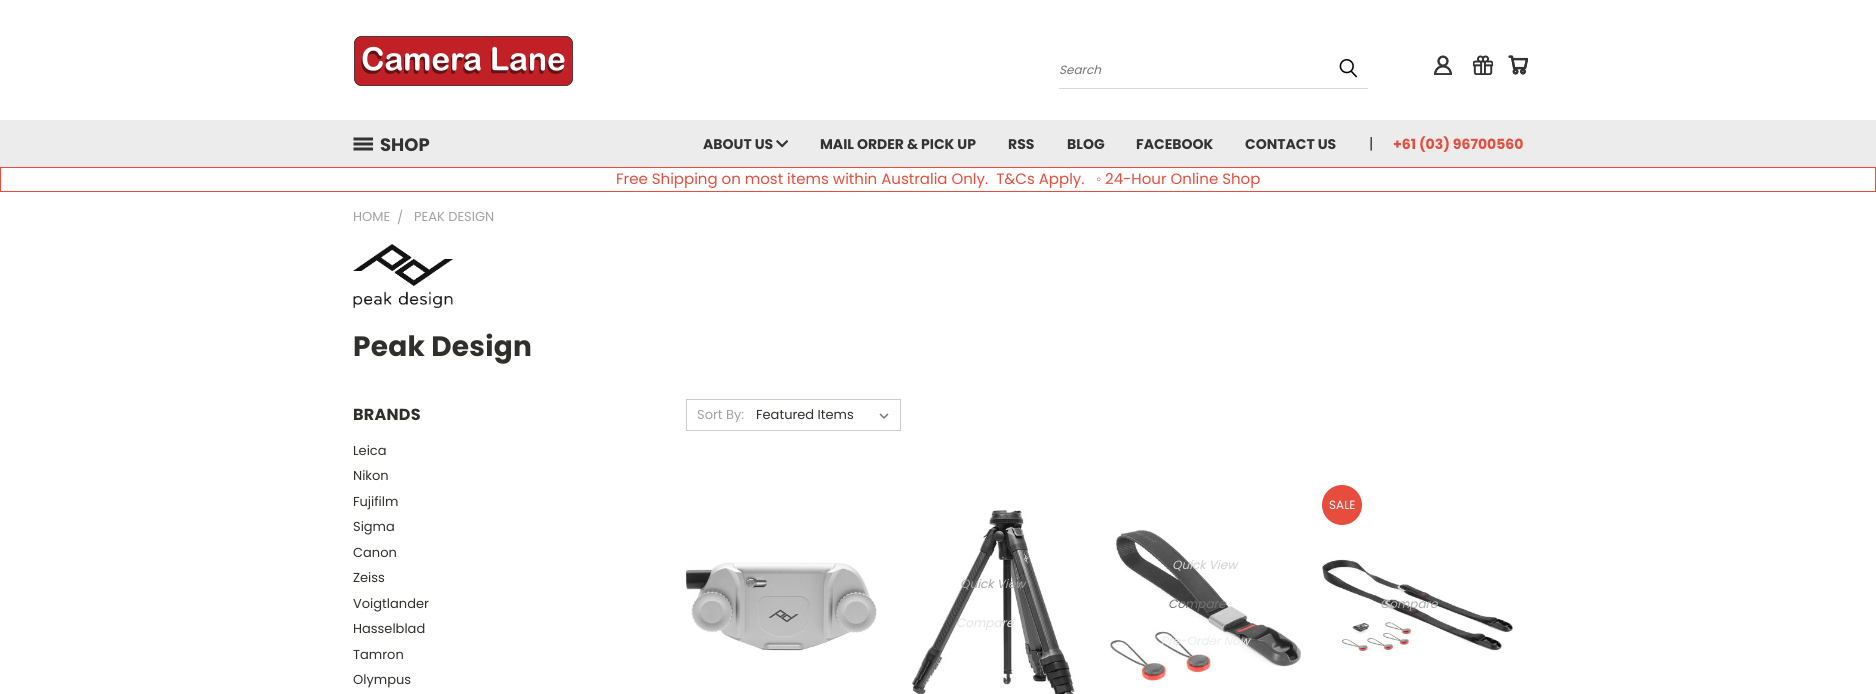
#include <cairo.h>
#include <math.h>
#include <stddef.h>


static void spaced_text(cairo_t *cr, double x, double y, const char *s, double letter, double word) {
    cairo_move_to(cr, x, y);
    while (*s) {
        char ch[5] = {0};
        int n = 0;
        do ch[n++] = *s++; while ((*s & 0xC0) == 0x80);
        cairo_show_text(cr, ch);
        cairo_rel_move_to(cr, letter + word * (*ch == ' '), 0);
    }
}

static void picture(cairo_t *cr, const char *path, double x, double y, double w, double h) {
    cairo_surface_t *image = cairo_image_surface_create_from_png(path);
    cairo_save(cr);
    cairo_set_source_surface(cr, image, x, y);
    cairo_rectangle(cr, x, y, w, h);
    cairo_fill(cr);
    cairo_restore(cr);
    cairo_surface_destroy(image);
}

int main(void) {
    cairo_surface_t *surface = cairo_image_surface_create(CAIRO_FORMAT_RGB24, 1876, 694);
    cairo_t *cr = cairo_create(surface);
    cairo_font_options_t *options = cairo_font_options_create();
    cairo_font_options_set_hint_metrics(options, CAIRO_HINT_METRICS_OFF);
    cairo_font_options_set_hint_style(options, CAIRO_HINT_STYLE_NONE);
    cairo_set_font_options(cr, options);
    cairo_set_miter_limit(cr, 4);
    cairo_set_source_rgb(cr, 1, 1, 1);
    cairo_paint(cr);
    picture(cr, "img1.png", 354, 36, 219, 50);
    cairo_set_source_rgb(cr, 0.843, 0.843, 0.843);
    cairo_rectangle(cr, 1059, 88, 309, 1);
    cairo_fill(cr);
    cairo_select_font_face(cr, "Poppins", CAIRO_FONT_SLANT_ITALIC, CAIRO_FONT_WEIGHT_NORMAL);
    cairo_set_font_size(cr, 12);
    cairo_set_source_rgb(cr, 0.451, 0.451, 0.451);
    cairo_move_to(cr, 1059, 74);
    cairo_show_text(cr, "Search");
    picture(cr, "img2.png", 1339, 59, 18, 19);
    picture(cr, "img3.png", 1434, 55, 18, 20);
    picture(cr, "img4.png", 1473, 55, 20, 20);
    picture(cr, "img5.png", 1508, 55, 20, 20);
    cairo_set_source_rgb(cr, 0.922, 0.922, 0.922);
    cairo_rectangle(cr, 0, 120, 1876, 47);
    cairo_fill(cr);
    picture(cr, "img6.png", 353, 137, 20, 14);
    cairo_select_font_face(cr, "Poppins", CAIRO_FONT_SLANT_NORMAL, CAIRO_FONT_WEIGHT_BOLD);
    cairo_set_font_size(cr, 18);
    cairo_set_source_rgb(cr, 0.2, 0.2, 0.2);
    cairo_move_to(cr, 380, 151);
    cairo_show_text(cr, "SHOP");
    cairo_set_font_size(cr, 14);
    cairo_move_to(cr, 703, 149);
    cairo_show_text(cr, "ABOUT US");
    picture(cr, "img7.png", 776, 140, 12, 8);
    cairo_move_to(cr, 820, 149);
    cairo_show_text(cr, "MAIL ORDER & PICK UP");
    cairo_move_to(cr, 1008, 149);
    cairo_show_text(cr, "RSS");
    cairo_move_to(cr, 1067, 149);
    cairo_show_text(cr, "BLOG");
    cairo_move_to(cr, 1136, 149);
    cairo_show_text(cr, "FACEBOOK");
    cairo_move_to(cr, 1245, 149);
    cairo_show_text(cr, "CONTACT US");
    cairo_select_font_face(cr, "Poppins", CAIRO_FONT_SLANT_NORMAL, CAIRO_FONT_WEIGHT_NORMAL);
    cairo_set_font_size(cr, 15);
    cairo_set_source_rgb(cr, 0.184, 0.184, 0.169);
    cairo_move_to(cr, 1369, 149);
    cairo_show_text(cr, "|");
    cairo_select_font_face(cr, "Poppins", CAIRO_FONT_SLANT_NORMAL, CAIRO_FONT_WEIGHT_BOLD);
    cairo_set_font_size(cr, 14);
    cairo_set_source_rgb(cr, 0.906, 0.298, 0.235);
    cairo_move_to(cr, 1393, 149);
    cairo_show_text(cr, "+61 (03) 96700560");
    cairo_rectangle(cr, 0.5, 167.5, 1875, 24);
    cairo_set_line_width(cr, 1);
    cairo_stroke(cr);
    cairo_select_font_face(cr, "Poppins", CAIRO_FONT_SLANT_NORMAL, CAIRO_FONT_WEIGHT_NORMAL);
    cairo_set_font_size(cr, 15);
    cairo_move_to(cr, 616, 184);
    cairo_show_text(cr, "Free Shipping on most items within Australia Only.  T&Cs Apply.");
    cairo_select_font_face(cr, "Liberation Sans", CAIRO_FONT_SLANT_NORMAL, CAIRO_FONT_WEIGHT_BOLD);
    cairo_move_to(cr, 1096, 184);
    cairo_show_text(cr, "◦");
    cairo_select_font_face(cr, "Poppins", CAIRO_FONT_SLANT_NORMAL, CAIRO_FONT_WEIGHT_NORMAL);
    cairo_move_to(cr, 1105, 184);
    cairo_show_text(cr, "24-Hour Online Shop");
    cairo_set_font_size(cr, 13);
    cairo_set_source_rgb(cr, 0.635, 0.635, 0.635);
    cairo_move_to(cr, 353, 221);
    cairo_show_text(cr, "HOME");
    cairo_move_to(cr, 397, 222);
    cairo_show_text(cr, "/");
    cairo_move_to(cr, 414, 221);
    cairo_show_text(cr, "PEAK DESIGN");
    picture(cr, "img8.png", 353, 244, 100, 64);
    cairo_select_font_face(cr, "Poppins", CAIRO_FONT_SLANT_NORMAL, CAIRO_FONT_WEIGHT_BOLD);
    cairo_set_font_size(cr, 28);
    cairo_set_source_rgb(cr, 0.184, 0.184, 0.169);
    spaced_text(cr, 353, 356, "Peak Design", 0.25, 0);
    cairo_set_font_size(cr, 16);
    spaced_text(cr, 353, 420, "BRANDS", 0.25, 0);
    cairo_select_font_face(cr, "Poppins", CAIRO_FONT_SLANT_NORMAL, CAIRO_FONT_WEIGHT_NORMAL);
    cairo_set_font_size(cr, 13);
    cairo_move_to(cr, 353, 455);
    cairo_show_text(cr, "Leica");
    cairo_move_to(cr, 353, 480);
    cairo_show_text(cr, "Nikon");
    cairo_move_to(cr, 353, 506);
    cairo_show_text(cr, "Fujifilm");
    cairo_move_to(cr, 353, 531);
    cairo_show_text(cr, "Sigma");
    cairo_move_to(cr, 353, 557);
    cairo_show_text(cr, "Canon");
    cairo_move_to(cr, 353, 582);
    cairo_show_text(cr, "Zeiss");
    cairo_move_to(cr, 353, 608);
    cairo_show_text(cr, "Voigtlander");
    cairo_move_to(cr, 353, 633);
    cairo_show_text(cr, "Hasselblad");
    cairo_move_to(cr, 353, 659);
    cairo_show_text(cr, "Tamron");
    cairo_move_to(cr, 353, 684);
    cairo_show_text(cr, "Olympus");
    cairo_rectangle(cr, 686.5, 399.5, 214, 31);
    cairo_set_source_rgb(cr, 0.8, 0.8, 0.8);
    cairo_stroke(cr);
    cairo_set_source_rgb(cr, 0.635, 0.635, 0.635);
    cairo_move_to(cr, 697, 419);
    cairo_show_text(cr, "Sort By:");
    picture(cr, "img9.png", 879, 413, 10, 6);
    cairo_set_source_rgb(cr, 0.184, 0.184, 0.169);
    cairo_move_to(cr, 756, 419);
    cairo_show_text(cr, "Featured Items");
    picture(cr, "img10.png", 686, 562, 191, 89);
    picture(cr, "img11.png", 911, 510, 164, 184);
    cairo_select_font_face(cr, "Poppins", CAIRO_FONT_SLANT_ITALIC, CAIRO_FONT_WEIGHT_NORMAL);
    cairo_set_font_size(cr, 12);
    cairo_set_source_rgb(cr, 0.635, 0.635, 0.635);
    cairo_move_to(cr, 960, 588);
    cairo_show_text(cr, "Quick View");
    cairo_set_source_rgb(cr, 0.89, 0.89, 0.89);
    cairo_move_to(cr, 956, 627);
    cairo_show_text(cr, "Compare");
    picture(cr, "img12.png", 1110, 529, 191, 153);
    cairo_set_source_rgb(cr, 0.812, 0.812, 0.812);
    cairo_move_to(cr, 1172, 569);
    cairo_show_text(cr, "Quick View");
    cairo_set_source_rgb(cr, 0.451, 0.451, 0.451);
    cairo_move_to(cr, 1168, 608);
    cairo_show_text(cr, "Compare");
    cairo_set_source_rgb(cr, 0.925, 0.925, 0.925);
    cairo_move_to(cr, 1161, 645);
    cairo_show_text(cr, "Pre-Order Now");
    cairo_set_source_rgb(cr, 0.906, 0.298, 0.235);
    cairo_new_path(cr);
    cairo_arc(cr, 1342, 505, 20, 0, 2 * M_PI);
    cairo_fill(cr);
    cairo_select_font_face(cr, "Poppins", CAIRO_FONT_SLANT_NORMAL, CAIRO_FONT_WEIGHT_NORMAL);
    cairo_set_source_rgb(cr, 1, 1, 1);
    cairo_move_to(cr, 1329, 509);
    cairo_show_text(cr, "SALE");
    picture(cr, "img13.png", 1322, 559, 191, 94);
    cairo_select_font_face(cr, "Poppins", CAIRO_FONT_SLANT_ITALIC, CAIRO_FONT_WEIGHT_NORMAL);
    cairo_set_source_rgb(cr, 0.686, 0.686, 0.686);
    cairo_move_to(cr, 1380, 608);
    cairo_show_text(cr, "Compare");
    cairo_surface_write_to_png(surface, "page.png");
    cairo_font_options_destroy(options);
    cairo_destroy(cr);
    cairo_surface_destroy(surface);
    return 0;
}
